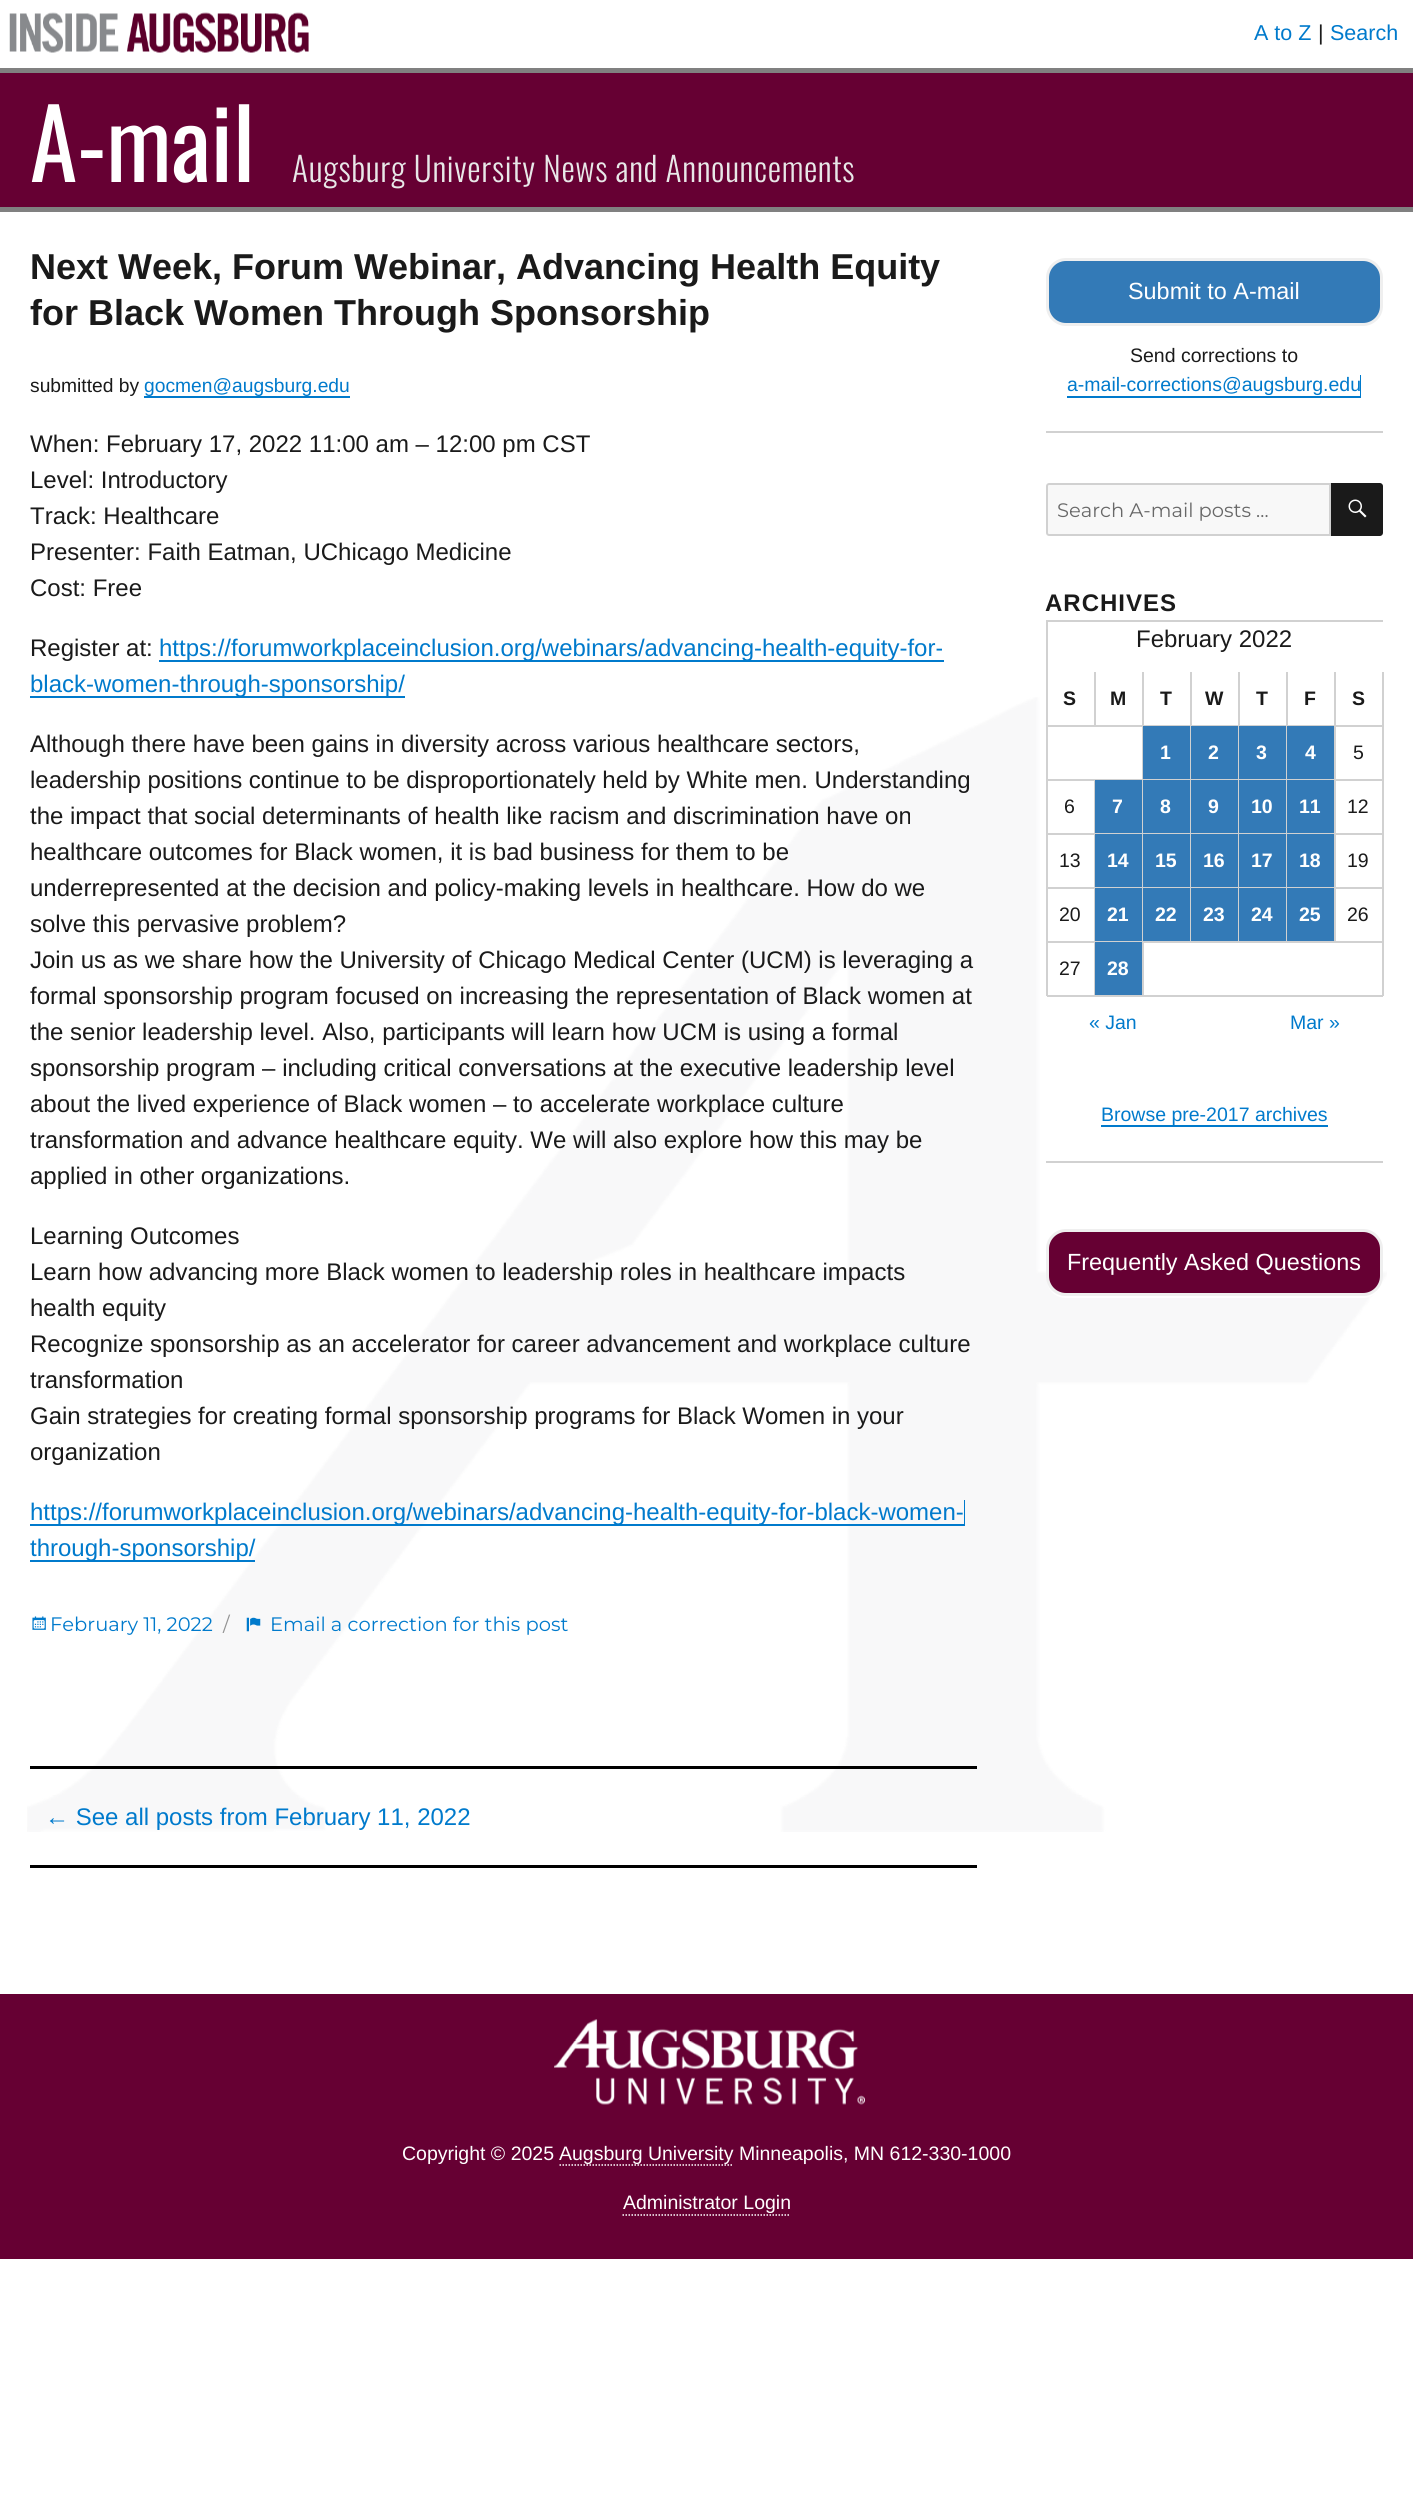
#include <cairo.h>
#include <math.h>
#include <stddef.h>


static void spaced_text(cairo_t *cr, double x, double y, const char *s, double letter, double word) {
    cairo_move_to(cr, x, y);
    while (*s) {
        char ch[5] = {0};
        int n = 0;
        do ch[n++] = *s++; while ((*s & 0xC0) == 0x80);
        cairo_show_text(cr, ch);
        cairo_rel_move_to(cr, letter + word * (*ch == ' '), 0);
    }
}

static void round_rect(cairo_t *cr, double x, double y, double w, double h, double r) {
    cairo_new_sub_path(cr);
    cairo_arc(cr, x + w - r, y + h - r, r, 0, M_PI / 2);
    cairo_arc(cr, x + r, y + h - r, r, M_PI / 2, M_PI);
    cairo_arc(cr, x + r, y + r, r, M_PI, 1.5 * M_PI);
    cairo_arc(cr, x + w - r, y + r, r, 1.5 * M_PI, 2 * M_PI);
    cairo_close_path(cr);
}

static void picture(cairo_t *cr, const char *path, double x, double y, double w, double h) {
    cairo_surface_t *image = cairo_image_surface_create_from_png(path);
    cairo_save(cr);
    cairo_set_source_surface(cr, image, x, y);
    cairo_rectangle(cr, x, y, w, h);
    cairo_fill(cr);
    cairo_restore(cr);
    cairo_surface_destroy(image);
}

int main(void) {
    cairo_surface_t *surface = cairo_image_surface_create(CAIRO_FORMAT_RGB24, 1413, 2519);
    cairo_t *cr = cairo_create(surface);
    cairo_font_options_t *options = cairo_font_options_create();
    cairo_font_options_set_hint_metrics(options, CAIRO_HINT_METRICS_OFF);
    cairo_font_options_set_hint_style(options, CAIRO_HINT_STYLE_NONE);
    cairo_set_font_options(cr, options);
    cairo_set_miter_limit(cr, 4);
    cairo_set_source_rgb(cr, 1, 1, 1);
    cairo_paint(cr);
    picture(cr, "img1.png", 9, 12, 300, 41);
    cairo_select_font_face(cr, "Liberation Sans", CAIRO_FONT_SLANT_NORMAL, CAIRO_FONT_WEIGHT_NORMAL);
    cairo_set_font_size(cr, 21.5);
    cairo_set_source_rgb(cr, 0, 0.478, 0.8);
    cairo_move_to(cr, 1254, 40);
    cairo_show_text(cr, "A to Z");
    cairo_set_source_rgb(cr, 0.102, 0.102, 0.102);
    cairo_move_to(cr, 1318, 40);
    cairo_show_text(cr, "|");
    cairo_set_source_rgb(cr, 0, 0.478, 0.8);
    cairo_move_to(cr, 1330, 40);
    cairo_show_text(cr, "Search");
    cairo_set_source_rgb(cr, 0.4, 0, 0.2);
    cairo_rectangle(cr, 0, 73, 1413, 134);
    cairo_fill(cr);
    cairo_set_source_rgb(cr, 0.502, 0.502, 0.502);
    cairo_rectangle(cr, 0, 68, 1413, 5);
    cairo_fill(cr);
    cairo_rectangle(cr, 0, 207, 1413, 5);
    cairo_fill(cr);
    cairo_select_font_face(cr, "Oswald", CAIRO_FONT_SLANT_NORMAL, CAIRO_FONT_WEIGHT_NORMAL);
    cairo_set_font_size(cr, 96);
    cairo_set_source_rgb(cr, 1, 1, 1);
    cairo_move_to(cr, 30, 182);
    cairo_show_text(cr, "A-mail");
    cairo_select_font_face(cr, "Oswald Light", CAIRO_FONT_SLANT_NORMAL, CAIRO_FONT_WEIGHT_NORMAL);
    cairo_set_font_size(cr, 33.6);
    cairo_set_source_rgb(cr, 0.91, 0.91, 0.91);
    spaced_text(cr, 292, 182, "Augsburg University News and Announcements", 0.65, 0);
    picture(cr, "img2.png", 27, 697, 1360, 1135);
    cairo_select_font_face(cr, "Liberation Sans", CAIRO_FONT_SLANT_NORMAL, CAIRO_FONT_WEIGHT_BOLD);
    cairo_set_font_size(cr, 36);
    cairo_set_source_rgb(cr, 0.102, 0.102, 0.102);
    cairo_move_to(cr, 30, 279);
    cairo_show_text(cr, "Next Week, Forum Webinar, Advancing Health Equity");
    cairo_move_to(cr, 30, 325);
    cairo_show_text(cr, "for Black Women Through Sponsorship");
    cairo_select_font_face(cr, "Liberation Sans", CAIRO_FONT_SLANT_NORMAL, CAIRO_FONT_WEIGHT_NORMAL);
    cairo_set_font_size(cr, 19.25);
    cairo_move_to(cr, 30, 392);
    cairo_show_text(cr, "submitted by");
    cairo_set_source_rgb(cr, 0, 0.478, 0.8);
    cairo_move_to(cr, 144, 392);
    cairo_show_text(cr, "gocmen@augsburg.edu");
    cairo_new_path(cr);
    cairo_move_to(cr, 144, 396);
    cairo_line_to(cr, 144, 398);
    cairo_line_to(cr, 350, 398);
    cairo_line_to(cr, 350, 375);
    cairo_line_to(cr, 350, 396);
    cairo_close_path(cr);
    cairo_fill(cr);
    cairo_set_font_size(cr, 24);
    cairo_set_source_rgb(cr, 0.102, 0.102, 0.102);
    cairo_move_to(cr, 30, 452);
    cairo_show_text(cr, "When: February 17, 2022 11:00 am – 12:00 pm CST");
    cairo_move_to(cr, 30, 488);
    cairo_show_text(cr, "Level: Introductory");
    cairo_move_to(cr, 30, 524);
    cairo_show_text(cr, "Track: Healthcare");
    cairo_move_to(cr, 30, 560);
    cairo_show_text(cr, "Presenter: Faith Eatman, UChicago Medicine");
    cairo_move_to(cr, 30, 596);
    cairo_show_text(cr, "Cost: Free");
    cairo_move_to(cr, 30, 656);
    cairo_show_text(cr, "Register at:");
    cairo_set_source_rgb(cr, 0, 0.478, 0.8);
    cairo_new_path(cr);
    cairo_move_to(cr, 159, 660);
    cairo_line_to(cr, 159, 662);
    cairo_line_to(cr, 944, 662);
    cairo_line_to(cr, 944, 636);
    cairo_line_to(cr, 944, 660);
    cairo_close_path(cr);
    cairo_fill(cr);
    cairo_move_to(cr, 159, 656);
    cairo_show_text(cr, "https://forumworkplaceinclusion.org/webinars/advancing-health-equity-for-");
    cairo_rectangle(cr, 30, 696, 375, 2);
    cairo_fill(cr);
    cairo_move_to(cr, 30, 692);
    cairo_show_text(cr, "black-women-through-sponsorship/");
    cairo_set_source_rgb(cr, 0.102, 0.102, 0.102);
    cairo_move_to(cr, 30, 752);
    cairo_show_text(cr, "Although there have been gains in diversity across various healthcare sectors,");
    cairo_move_to(cr, 30, 788);
    cairo_show_text(cr, "leadership positions continue to be disproportionately held by White men. Understanding");
    cairo_move_to(cr, 30, 824);
    cairo_show_text(cr, "the impact that social determinants of health like racism and discrimination have on");
    cairo_move_to(cr, 30, 860);
    cairo_show_text(cr, "healthcare outcomes for Black women, it is bad business for them to be");
    cairo_move_to(cr, 30, 896);
    cairo_show_text(cr, "underrepresented at the decision and policy-making levels in healthcare. How do we");
    cairo_move_to(cr, 30, 932);
    cairo_show_text(cr, "solve this pervasive problem?");
    cairo_move_to(cr, 30, 968);
    cairo_show_text(cr, "Join us as we share how the University of Chicago Medical Center (UCM) is leveraging a");
    cairo_move_to(cr, 30, 1004);
    cairo_show_text(cr, "formal sponsorship program focused on increasing the representation of Black women at");
    cairo_move_to(cr, 30, 1040);
    cairo_show_text(cr, "the senior leadership level. Also, participants will learn how UCM is using a formal");
    cairo_move_to(cr, 30, 1076);
    cairo_show_text(cr, "sponsorship program – including critical conversations at the executive leadership level");
    cairo_move_to(cr, 30, 1112);
    cairo_show_text(cr, "about the lived experience of Black women – to accelerate workplace culture");
    cairo_move_to(cr, 30, 1148);
    cairo_show_text(cr, "transformation and advance healthcare equity. We will also explore how this may be");
    cairo_move_to(cr, 30, 1184);
    cairo_show_text(cr, "applied in other organizations.");
    cairo_move_to(cr, 30, 1244);
    cairo_show_text(cr, "Learning Outcomes");
    cairo_move_to(cr, 30, 1280);
    cairo_show_text(cr, "Learn how advancing more Black women to leadership roles in healthcare impacts");
    cairo_move_to(cr, 30, 1316);
    cairo_show_text(cr, "health equity");
    cairo_move_to(cr, 30, 1352);
    cairo_show_text(cr, "Recognize sponsorship as an accelerator for career advancement and workplace culture");
    cairo_move_to(cr, 30, 1388);
    cairo_show_text(cr, "transformation");
    cairo_move_to(cr, 30, 1424);
    cairo_show_text(cr, "Gain strategies for creating formal sponsorship programs for Black Women in your");
    cairo_move_to(cr, 30, 1460);
    cairo_show_text(cr, "organization");
    cairo_set_source_rgb(cr, 0, 0.478, 0.8);
    cairo_new_path(cr);
    cairo_move_to(cr, 30, 1524);
    cairo_line_to(cr, 30, 1526);
    cairo_line_to(cr, 965, 1526);
    cairo_line_to(cr, 965, 1500);
    cairo_line_to(cr, 964, 1500);
    cairo_line_to(cr, 964, 1524);
    cairo_close_path(cr);
    cairo_fill(cr);
    cairo_move_to(cr, 30, 1520);
    cairo_show_text(cr, "https://forumworkplaceinclusion.org/webinars/advancing-health-equity-for-black-women-");
    cairo_rectangle(cr, 30, 1560, 225, 2);
    cairo_fill(cr);
    cairo_move_to(cr, 30, 1556);
    cairo_show_text(cr, "through-sponsorship/");
    picture(cr, "img3.png", 32, 1616, 14, 14);
    cairo_select_font_face(cr, "Montserrat Thin", CAIRO_FONT_SLANT_NORMAL, CAIRO_FONT_WEIGHT_NORMAL);
    cairo_set_font_size(cr, 19.5);
    cairo_move_to(cr, 50, 1631);
    cairo_show_text(cr, "February 11, 2022");
    cairo_set_source_rgb(cr, 0.576, 0.576, 0.576);
    cairo_move_to(cr, 223, 1631);
    cairo_show_text(cr, "/");
    picture(cr, "img4.png", 246, 1617, 15, 15);
    cairo_set_source_rgb(cr, 0, 0.478, 0.8);
    cairo_move_to(cr, 270, 1631);
    cairo_show_text(cr, "Email a correction for this post");
    cairo_set_source_rgb(cr, 0, 0, 0);
    cairo_rectangle(cr, 30, 1766, 947, 3);
    cairo_fill(cr);
    cairo_rectangle(cr, 30, 1865, 947, 3);
    cairo_fill(cr);
    cairo_select_font_face(cr, "Liberation Sans", CAIRO_FONT_SLANT_NORMAL, CAIRO_FONT_WEIGHT_NORMAL);
    cairo_set_font_size(cr, 24);
    cairo_set_source_rgb(cr, 0, 0.478, 0.8);
    cairo_move_to(cr, 45, 1825);
    cairo_show_text(cr, "← See all posts from February 11, 2022");
    cairo_set_source_rgb(cr, 0.2, 0.478, 0.718);
    round_rect(cr, 1047.5, 259.5, 334, 65, 18.5);
    cairo_fill_preserve(cr);
    cairo_set_source_rgb(cr, 0.937, 0.937, 0.937);
    cairo_set_line_width(cr, 3);
    cairo_stroke(cr);
    cairo_set_font_size(cr, 23.4);
    cairo_set_source_rgb(cr, 1, 1, 1);
    cairo_move_to(cr, 1128, 299);
    cairo_show_text(cr, "Submit to A-mail");
    cairo_set_font_size(cr, 19.5);
    cairo_set_source_rgb(cr, 0.102, 0.102, 0.102);
    cairo_move_to(cr, 1130, 362);
    cairo_show_text(cr, "Send corrections to");
    cairo_set_source_rgb(cr, 0, 0.478, 0.8);
    cairo_new_path(cr);
    cairo_move_to(cr, 1067, 396);
    cairo_line_to(cr, 1067, 398);
    cairo_line_to(cr, 1361, 398);
    cairo_line_to(cr, 1361, 375);
    cairo_line_to(cr, 1360, 375);
    cairo_line_to(cr, 1360, 396);
    cairo_close_path(cr);
    cairo_fill(cr);
    cairo_move_to(cr, 1067, 391);
    cairo_show_text(cr, "a-mail-corrections@augsburg.edu");
    cairo_set_source_rgb(cr, 0.82, 0.82, 0.82);
    cairo_rectangle(cr, 1046, 431, 337, 2);
    cairo_fill(cr);
    cairo_set_source_rgb(cr, 0.969, 0.969, 0.969);
    cairo_new_path(cr);
    cairo_move_to(cr, 1049, 484);
    cairo_line_to(cr, 1330, 484);
    cairo_line_to(cr, 1330, 535);
    cairo_line_to(cr, 1049, 535);
    cairo_curve_to(cr, 1048, 535, 1047, 534, 1047, 533);
    cairo_line_to(cr, 1047, 486);
    cairo_curve_to(cr, 1047, 485, 1048, 484, 1049, 484);
    cairo_close_path(cr);
    cairo_fill_preserve(cr);
    cairo_set_source_rgb(cr, 0.82, 0.82, 0.82);
    cairo_set_line_width(cr, 2);
    cairo_stroke(cr);
    cairo_select_font_face(cr, "Montserrat Thin", CAIRO_FONT_SLANT_NORMAL, CAIRO_FONT_WEIGHT_NORMAL);
    cairo_set_source_rgb(cr, 0.408, 0.408, 0.408);
    cairo_move_to(cr, 1057, 517);
    cairo_show_text(cr, "Search A-mail posts …");
    cairo_set_source_rgb(cr, 0.102, 0.102, 0.102);
    cairo_new_path(cr);
    cairo_move_to(cr, 1331, 483);
    cairo_line_to(cr, 1380, 483);
    cairo_curve_to(cr, 1381.5, 483, 1383, 484.5, 1383, 486);
    cairo_line_to(cr, 1383, 533);
    cairo_curve_to(cr, 1383, 534.5, 1381.5, 536, 1380, 536);
    cairo_line_to(cr, 1331, 536);
    cairo_close_path(cr);
    cairo_fill(cr);
    picture(cr, "img5.png", 1348, 499, 19, 19);
    cairo_select_font_face(cr, "Liberation Sans", CAIRO_FONT_SLANT_NORMAL, CAIRO_FONT_WEIGHT_BOLD);
    cairo_set_font_size(cr, 24);
    spaced_text(cr, 1045, 611, "ARCHIVES", 1, 0);
    cairo_set_source_rgb(cr, 0.82, 0.82, 0.82);
    cairo_rectangle(cr, 1046, 620, 337, 2);
    cairo_fill(cr);
    cairo_rectangle(cr, 1046, 620, 2, 376);
    cairo_fill(cr);
    cairo_select_font_face(cr, "Liberation Sans", CAIRO_FONT_SLANT_NORMAL, CAIRO_FONT_WEIGHT_NORMAL);
    cairo_set_source_rgb(cr, 0.102, 0.102, 0.102);
    cairo_move_to(cr, 1136, 647);
    cairo_show_text(cr, "February 2022");
    cairo_set_source_rgb(cr, 0.82, 0.82, 0.82);
    cairo_rectangle(cr, 1094, 672, 2, 54);
    cairo_fill(cr);
    cairo_rectangle(cr, 1047, 725, 48, 2);
    cairo_fill(cr);
    cairo_select_font_face(cr, "Liberation Sans", CAIRO_FONT_SLANT_NORMAL, CAIRO_FONT_WEIGHT_BOLD);
    cairo_set_font_size(cr, 19.5);
    cairo_set_source_rgb(cr, 0.102, 0.102, 0.102);
    cairo_move_to(cr, 1063, 705);
    cairo_show_text(cr, "S");
    cairo_set_source_rgb(cr, 0.82, 0.82, 0.82);
    cairo_rectangle(cr, 1142, 672, 2, 54);
    cairo_fill(cr);
    cairo_rectangle(cr, 1095, 725, 48, 2);
    cairo_fill(cr);
    cairo_set_source_rgb(cr, 0.102, 0.102, 0.102);
    cairo_move_to(cr, 1110, 705);
    cairo_show_text(cr, "M");
    cairo_set_source_rgb(cr, 0.82, 0.82, 0.82);
    cairo_rectangle(cr, 1190, 672, 2, 54);
    cairo_fill(cr);
    cairo_rectangle(cr, 1143, 725, 48, 1);
    cairo_fill(cr);
    cairo_set_source_rgb(cr, 0.102, 0.102, 0.102);
    cairo_move_to(cr, 1160, 705);
    cairo_show_text(cr, "T");
    cairo_set_source_rgb(cr, 0.82, 0.82, 0.82);
    cairo_rectangle(cr, 1238, 672, 2, 54);
    cairo_fill(cr);
    cairo_rectangle(cr, 1191, 725, 48, 1);
    cairo_fill(cr);
    cairo_set_source_rgb(cr, 0.102, 0.102, 0.102);
    cairo_move_to(cr, 1205, 705);
    cairo_show_text(cr, "W");
    cairo_set_source_rgb(cr, 0.82, 0.82, 0.82);
    cairo_rectangle(cr, 1286, 672, 2, 54);
    cairo_fill(cr);
    cairo_rectangle(cr, 1239, 725, 48, 1);
    cairo_fill(cr);
    cairo_set_source_rgb(cr, 0.102, 0.102, 0.102);
    cairo_move_to(cr, 1256, 705);
    cairo_show_text(cr, "T");
    cairo_set_source_rgb(cr, 0.82, 0.82, 0.82);
    cairo_rectangle(cr, 1334, 672, 2, 54);
    cairo_fill(cr);
    cairo_rectangle(cr, 1287, 725, 48, 1);
    cairo_fill(cr);
    cairo_set_source_rgb(cr, 0.102, 0.102, 0.102);
    cairo_move_to(cr, 1304, 705);
    cairo_show_text(cr, "F");
    cairo_set_source_rgb(cr, 0.82, 0.82, 0.82);
    cairo_rectangle(cr, 1382, 672, 2, 54);
    cairo_fill(cr);
    cairo_rectangle(cr, 1335, 725, 48, 2);
    cairo_fill(cr);
    cairo_set_source_rgb(cr, 0.102, 0.102, 0.102);
    cairo_move_to(cr, 1352, 705);
    cairo_show_text(cr, "S");
    cairo_set_source_rgb(cr, 0.82, 0.82, 0.82);
    cairo_rectangle(cr, 1142, 726, 1, 54);
    cairo_fill(cr);
    cairo_rectangle(cr, 1047, 779, 96, 2);
    cairo_fill(cr);
    cairo_rectangle(cr, 1190, 726, 1, 216);
    cairo_fill(cr);
    cairo_rectangle(cr, 1143, 779, 48, 1);
    cairo_fill(cr);
    cairo_set_source_rgb(cr, 0.2, 0.478, 0.718);
    cairo_rectangle(cr, 1143, 726, 47, 53);
    cairo_fill(cr);
    cairo_set_source_rgb(cr, 1, 1, 1);
    cairo_move_to(cr, 1160, 759);
    cairo_show_text(cr, "1");
    cairo_set_source_rgb(cr, 0.82, 0.82, 0.82);
    cairo_rectangle(cr, 1238, 726, 1, 216);
    cairo_fill(cr);
    cairo_rectangle(cr, 1191, 779, 48, 1);
    cairo_fill(cr);
    cairo_set_source_rgb(cr, 0.2, 0.478, 0.718);
    cairo_rectangle(cr, 1191, 726, 47, 53);
    cairo_fill(cr);
    cairo_set_source_rgb(cr, 1, 1, 1);
    cairo_move_to(cr, 1208, 759);
    cairo_show_text(cr, "2");
    cairo_set_source_rgb(cr, 0.82, 0.82, 0.82);
    cairo_rectangle(cr, 1286, 726, 1, 216);
    cairo_fill(cr);
    cairo_rectangle(cr, 1239, 779, 48, 1);
    cairo_fill(cr);
    cairo_set_source_rgb(cr, 0.2, 0.478, 0.718);
    cairo_rectangle(cr, 1239, 726, 47, 53);
    cairo_fill(cr);
    cairo_set_source_rgb(cr, 1, 1, 1);
    cairo_move_to(cr, 1256, 759);
    cairo_show_text(cr, "3");
    cairo_set_source_rgb(cr, 0.82, 0.82, 0.82);
    cairo_rectangle(cr, 1334, 726, 2, 54);
    cairo_fill(cr);
    cairo_rectangle(cr, 1287, 779, 48, 1);
    cairo_fill(cr);
    cairo_set_source_rgb(cr, 0.2, 0.478, 0.718);
    cairo_rectangle(cr, 1287, 726, 47, 53);
    cairo_fill(cr);
    cairo_set_source_rgb(cr, 1, 1, 1);
    cairo_move_to(cr, 1305, 759);
    cairo_show_text(cr, "4");
    cairo_set_source_rgb(cr, 0.82, 0.82, 0.82);
    cairo_rectangle(cr, 1382, 726, 2, 54);
    cairo_fill(cr);
    cairo_rectangle(cr, 1335, 779, 48, 2);
    cairo_fill(cr);
    cairo_select_font_face(cr, "Liberation Sans", CAIRO_FONT_SLANT_NORMAL, CAIRO_FONT_WEIGHT_NORMAL);
    cairo_set_source_rgb(cr, 0.102, 0.102, 0.102);
    cairo_move_to(cr, 1353, 759);
    cairo_show_text(cr, "5");
    cairo_set_source_rgb(cr, 0.82, 0.82, 0.82);
    cairo_rectangle(cr, 1094, 780, 1, 54);
    cairo_fill(cr);
    cairo_rectangle(cr, 1047, 833, 48, 2);
    cairo_fill(cr);
    cairo_set_source_rgb(cr, 0.102, 0.102, 0.102);
    cairo_move_to(cr, 1064, 813);
    cairo_show_text(cr, "6");
    cairo_set_source_rgb(cr, 0.82, 0.82, 0.82);
    cairo_rectangle(cr, 1142, 780, 1, 162);
    cairo_fill(cr);
    cairo_rectangle(cr, 1095, 833, 192, 1);
    cairo_fill(cr);
    cairo_set_source_rgb(cr, 0.2, 0.478, 0.718);
    cairo_rectangle(cr, 1095, 780, 47, 53);
    cairo_fill(cr);
    cairo_select_font_face(cr, "Liberation Sans", CAIRO_FONT_SLANT_NORMAL, CAIRO_FONT_WEIGHT_BOLD);
    cairo_set_source_rgb(cr, 1, 1, 1);
    cairo_move_to(cr, 1112, 813);
    cairo_show_text(cr, "7");
    cairo_set_source_rgb(cr, 0.2, 0.478, 0.718);
    cairo_rectangle(cr, 1143, 780, 47, 53);
    cairo_fill(cr);
    cairo_set_source_rgb(cr, 1, 1, 1);
    cairo_move_to(cr, 1160, 813);
    cairo_show_text(cr, "8");
    cairo_set_source_rgb(cr, 0.2, 0.478, 0.718);
    cairo_rectangle(cr, 1191, 780, 47, 53);
    cairo_fill(cr);
    cairo_set_source_rgb(cr, 1, 1, 1);
    cairo_move_to(cr, 1208, 813);
    cairo_show_text(cr, "9");
    cairo_set_source_rgb(cr, 0.2, 0.478, 0.718);
    cairo_rectangle(cr, 1239, 780, 47, 53);
    cairo_fill(cr);
    cairo_set_source_rgb(cr, 1, 1, 1);
    cairo_move_to(cr, 1251, 813);
    cairo_show_text(cr, "10");
    cairo_set_source_rgb(cr, 0.82, 0.82, 0.82);
    cairo_rectangle(cr, 1334, 780, 2, 54);
    cairo_fill(cr);
    cairo_rectangle(cr, 1287, 833, 48, 1);
    cairo_fill(cr);
    cairo_set_source_rgb(cr, 0.2, 0.478, 0.718);
    cairo_rectangle(cr, 1287, 780, 47, 53);
    cairo_fill(cr);
    cairo_set_source_rgb(cr, 1, 1, 1);
    cairo_move_to(cr, 1299, 813);
    cairo_show_text(cr, "11");
    cairo_set_source_rgb(cr, 0.82, 0.82, 0.82);
    cairo_rectangle(cr, 1382, 780, 2, 54);
    cairo_fill(cr);
    cairo_rectangle(cr, 1335, 833, 48, 2);
    cairo_fill(cr);
    cairo_select_font_face(cr, "Liberation Sans", CAIRO_FONT_SLANT_NORMAL, CAIRO_FONT_WEIGHT_NORMAL);
    cairo_set_source_rgb(cr, 0.102, 0.102, 0.102);
    cairo_move_to(cr, 1347, 813);
    cairo_show_text(cr, "12");
    cairo_set_source_rgb(cr, 0.82, 0.82, 0.82);
    cairo_rectangle(cr, 1094, 834, 1, 54);
    cairo_fill(cr);
    cairo_rectangle(cr, 1047, 887, 48, 2);
    cairo_fill(cr);
    cairo_set_source_rgb(cr, 0.102, 0.102, 0.102);
    cairo_move_to(cr, 1059, 867);
    cairo_show_text(cr, "13");
    cairo_set_source_rgb(cr, 0.82, 0.82, 0.82);
    cairo_rectangle(cr, 1095, 887, 192, 1);
    cairo_fill(cr);
    cairo_set_source_rgb(cr, 0.2, 0.478, 0.718);
    cairo_rectangle(cr, 1095, 834, 47, 53);
    cairo_fill(cr);
    cairo_select_font_face(cr, "Liberation Sans", CAIRO_FONT_SLANT_NORMAL, CAIRO_FONT_WEIGHT_BOLD);
    cairo_set_source_rgb(cr, 1, 1, 1);
    cairo_move_to(cr, 1107, 867);
    cairo_show_text(cr, "14");
    cairo_set_source_rgb(cr, 0.2, 0.478, 0.718);
    cairo_rectangle(cr, 1143, 834, 47, 53);
    cairo_fill(cr);
    cairo_set_source_rgb(cr, 1, 1, 1);
    cairo_move_to(cr, 1155, 867);
    cairo_show_text(cr, "15");
    cairo_set_source_rgb(cr, 0.2, 0.478, 0.718);
    cairo_rectangle(cr, 1191, 834, 47, 53);
    cairo_fill(cr);
    cairo_set_source_rgb(cr, 1, 1, 1);
    cairo_move_to(cr, 1203, 867);
    cairo_show_text(cr, "16");
    cairo_set_source_rgb(cr, 0.2, 0.478, 0.718);
    cairo_rectangle(cr, 1239, 834, 47, 53);
    cairo_fill(cr);
    cairo_set_source_rgb(cr, 1, 1, 1);
    cairo_move_to(cr, 1251, 867);
    cairo_show_text(cr, "17");
    cairo_set_source_rgb(cr, 0.82, 0.82, 0.82);
    cairo_rectangle(cr, 1334, 834, 2, 54);
    cairo_fill(cr);
    cairo_rectangle(cr, 1287, 887, 48, 1);
    cairo_fill(cr);
    cairo_set_source_rgb(cr, 0.2, 0.478, 0.718);
    cairo_rectangle(cr, 1287, 834, 47, 53);
    cairo_fill(cr);
    cairo_set_source_rgb(cr, 1, 1, 1);
    cairo_move_to(cr, 1299, 867);
    cairo_show_text(cr, "18");
    cairo_set_source_rgb(cr, 0.82, 0.82, 0.82);
    cairo_rectangle(cr, 1382, 834, 2, 54);
    cairo_fill(cr);
    cairo_rectangle(cr, 1335, 887, 48, 2);
    cairo_fill(cr);
    cairo_select_font_face(cr, "Liberation Sans", CAIRO_FONT_SLANT_NORMAL, CAIRO_FONT_WEIGHT_NORMAL);
    cairo_set_source_rgb(cr, 0.102, 0.102, 0.102);
    cairo_move_to(cr, 1347, 867);
    cairo_show_text(cr, "19");
    cairo_set_source_rgb(cr, 0.82, 0.82, 0.82);
    cairo_rectangle(cr, 1094, 888, 1, 54);
    cairo_fill(cr);
    cairo_rectangle(cr, 1047, 941, 48, 2);
    cairo_fill(cr);
    cairo_set_source_rgb(cr, 0.102, 0.102, 0.102);
    cairo_move_to(cr, 1059, 921);
    cairo_show_text(cr, "20");
    cairo_set_source_rgb(cr, 0.82, 0.82, 0.82);
    cairo_rectangle(cr, 1095, 941, 48, 1);
    cairo_fill(cr);
    cairo_set_source_rgb(cr, 0.2, 0.478, 0.718);
    cairo_rectangle(cr, 1095, 888, 47, 53);
    cairo_fill(cr);
    cairo_select_font_face(cr, "Liberation Sans", CAIRO_FONT_SLANT_NORMAL, CAIRO_FONT_WEIGHT_BOLD);
    cairo_set_source_rgb(cr, 1, 1, 1);
    cairo_move_to(cr, 1107, 921);
    cairo_show_text(cr, "21");
    cairo_set_source_rgb(cr, 0.82, 0.82, 0.82);
    cairo_rectangle(cr, 1143, 941, 144, 2);
    cairo_fill(cr);
    cairo_set_source_rgb(cr, 0.2, 0.478, 0.718);
    cairo_rectangle(cr, 1143, 888, 47, 53);
    cairo_fill(cr);
    cairo_set_source_rgb(cr, 1, 1, 1);
    cairo_move_to(cr, 1155, 921);
    cairo_show_text(cr, "22");
    cairo_set_source_rgb(cr, 0.2, 0.478, 0.718);
    cairo_rectangle(cr, 1191, 888, 47, 53);
    cairo_fill(cr);
    cairo_set_source_rgb(cr, 1, 1, 1);
    cairo_move_to(cr, 1203, 921);
    cairo_show_text(cr, "23");
    cairo_set_source_rgb(cr, 0.2, 0.478, 0.718);
    cairo_rectangle(cr, 1239, 888, 47, 53);
    cairo_fill(cr);
    cairo_set_source_rgb(cr, 1, 1, 1);
    cairo_move_to(cr, 1251, 921);
    cairo_show_text(cr, "24");
    cairo_set_source_rgb(cr, 0.82, 0.82, 0.82);
    cairo_rectangle(cr, 1334, 888, 2, 54);
    cairo_fill(cr);
    cairo_rectangle(cr, 1287, 941, 48, 2);
    cairo_fill(cr);
    cairo_set_source_rgb(cr, 0.2, 0.478, 0.718);
    cairo_rectangle(cr, 1287, 888, 47, 53);
    cairo_fill(cr);
    cairo_set_source_rgb(cr, 1, 1, 1);
    cairo_move_to(cr, 1299, 921);
    cairo_show_text(cr, "25");
    cairo_set_source_rgb(cr, 0.82, 0.82, 0.82);
    cairo_rectangle(cr, 1382, 888, 2, 54);
    cairo_fill(cr);
    cairo_rectangle(cr, 1335, 941, 48, 2);
    cairo_fill(cr);
    cairo_select_font_face(cr, "Liberation Sans", CAIRO_FONT_SLANT_NORMAL, CAIRO_FONT_WEIGHT_NORMAL);
    cairo_set_source_rgb(cr, 0.102, 0.102, 0.102);
    cairo_move_to(cr, 1347, 921);
    cairo_show_text(cr, "26");
    cairo_set_source_rgb(cr, 0.82, 0.82, 0.82);
    cairo_rectangle(cr, 1094, 942, 1, 54);
    cairo_fill(cr);
    cairo_rectangle(cr, 1047, 995, 48, 2);
    cairo_fill(cr);
    cairo_set_source_rgb(cr, 0.102, 0.102, 0.102);
    cairo_move_to(cr, 1059, 975);
    cairo_show_text(cr, "27");
    cairo_set_source_rgb(cr, 0.82, 0.82, 0.82);
    cairo_rectangle(cr, 1142, 942, 2, 54);
    cairo_fill(cr);
    cairo_rectangle(cr, 1095, 995, 48, 2);
    cairo_fill(cr);
    cairo_set_source_rgb(cr, 0.2, 0.478, 0.718);
    cairo_rectangle(cr, 1095, 942, 47, 53);
    cairo_fill(cr);
    cairo_select_font_face(cr, "Liberation Sans", CAIRO_FONT_SLANT_NORMAL, CAIRO_FONT_WEIGHT_BOLD);
    cairo_set_source_rgb(cr, 1, 1, 1);
    cairo_move_to(cr, 1107, 975);
    cairo_show_text(cr, "28");
    cairo_set_source_rgb(cr, 0.82, 0.82, 0.82);
    cairo_rectangle(cr, 1382, 942, 2, 54);
    cairo_fill(cr);
    cairo_rectangle(cr, 1143, 995, 240, 2);
    cairo_fill(cr);
    cairo_select_font_face(cr, "Liberation Sans", CAIRO_FONT_SLANT_NORMAL, CAIRO_FONT_WEIGHT_NORMAL);
    cairo_set_source_rgb(cr, 0, 0.478, 0.8);
    cairo_move_to(cr, 1089, 1029);
    cairo_show_text(cr, "« Jan");
    cairo_move_to(cr, 1290, 1029);
    cairo_show_text(cr, "Mar »");
    cairo_new_path(cr);
    cairo_move_to(cr, 1101, 1125);
    cairo_line_to(cr, 1101, 1127);
    cairo_line_to(cr, 1328, 1127);
    cairo_line_to(cr, 1328, 1104);
    cairo_line_to(cr, 1328, 1125);
    cairo_close_path(cr);
    cairo_fill(cr);
    cairo_move_to(cr, 1101, 1121);
    cairo_show_text(cr, "Browse pre-2017 archives");
    cairo_set_source_rgb(cr, 0.82, 0.82, 0.82);
    cairo_rectangle(cr, 1046, 1161, 337, 2);
    cairo_fill(cr);
    cairo_set_source_rgb(cr, 1, 1, 1);
    cairo_new_path(cr);
    cairo_move_to(cr, 1047, 1283);
    cairo_curve_to(cr, 1049, 1292, 1057, 1298, 1066, 1298);
    cairo_line_to(cr, 1363, 1298);
    cairo_curve_to(cr, 1374, 1298, 1383, 1289, 1383, 1278);
    cairo_line_to(cr, 1383, 1276);
    cairo_curve_to(cr, 1383, 1287, 1374, 1296, 1364, 1296);
    cairo_line_to(cr, 1065, 1296);
    cairo_curve_to(cr, 1057, 1296, 1049, 1291, 1047, 1283);
    cairo_close_path(cr);
    cairo_fill(cr);
    cairo_set_source_rgb(cr, 0.4, 0, 0.2);
    round_rect(cr, 1047.5, 1230.5, 334, 64, 18.5);
    cairo_fill_preserve(cr);
    cairo_set_source_rgb(cr, 0.937, 0.937, 0.937);
    cairo_set_line_width(cr, 3);
    cairo_stroke(cr);
    cairo_set_font_size(cr, 23.4);
    cairo_set_source_rgb(cr, 1, 1, 1);
    cairo_move_to(cr, 1067, 1270);
    cairo_show_text(cr, "Frequently Asked Questions");
    cairo_set_source_rgb(cr, 0.4, 0, 0.2);
    cairo_rectangle(cr, 0, 1994, 1413, 265);
    cairo_fill(cr);
    picture(cr, "img6.png", 554, 2019, 311, 86);
    cairo_set_font_size(cr, 19.5);
    cairo_set_source_rgb(cr, 1, 1, 1);
    cairo_move_to(cr, 402, 2160);
    cairo_show_text(cr, "Copyright © 2025");
    cairo_new_path(cr);
    cairo_move_to(cr, 559.5, 2165);
    cairo_line_to(cr, 733.5, 2165);
    cairo_set_line_width(cr, 1.5);
    cairo_set_dash(cr, (double[]){1.5, 1.5}, 2, 0);
    cairo_stroke(cr);
    cairo_move_to(cr, 559, 2160);
    cairo_show_text(cr, "Augsburg University Minneapolis, MN 612-330-1000");
    cairo_move_to(cr, 623, 2209);
    cairo_show_text(cr, "Administrator Login");
    cairo_new_path(cr);
    cairo_move_to(cr, 622.5, 2215);
    cairo_line_to(cr, 790.5, 2215);
    cairo_stroke(cr);
    cairo_surface_write_to_png(surface, "page.png");
    cairo_font_options_destroy(options);
    cairo_destroy(cr);
    cairo_surface_destroy(surface);
    return 0;
}
